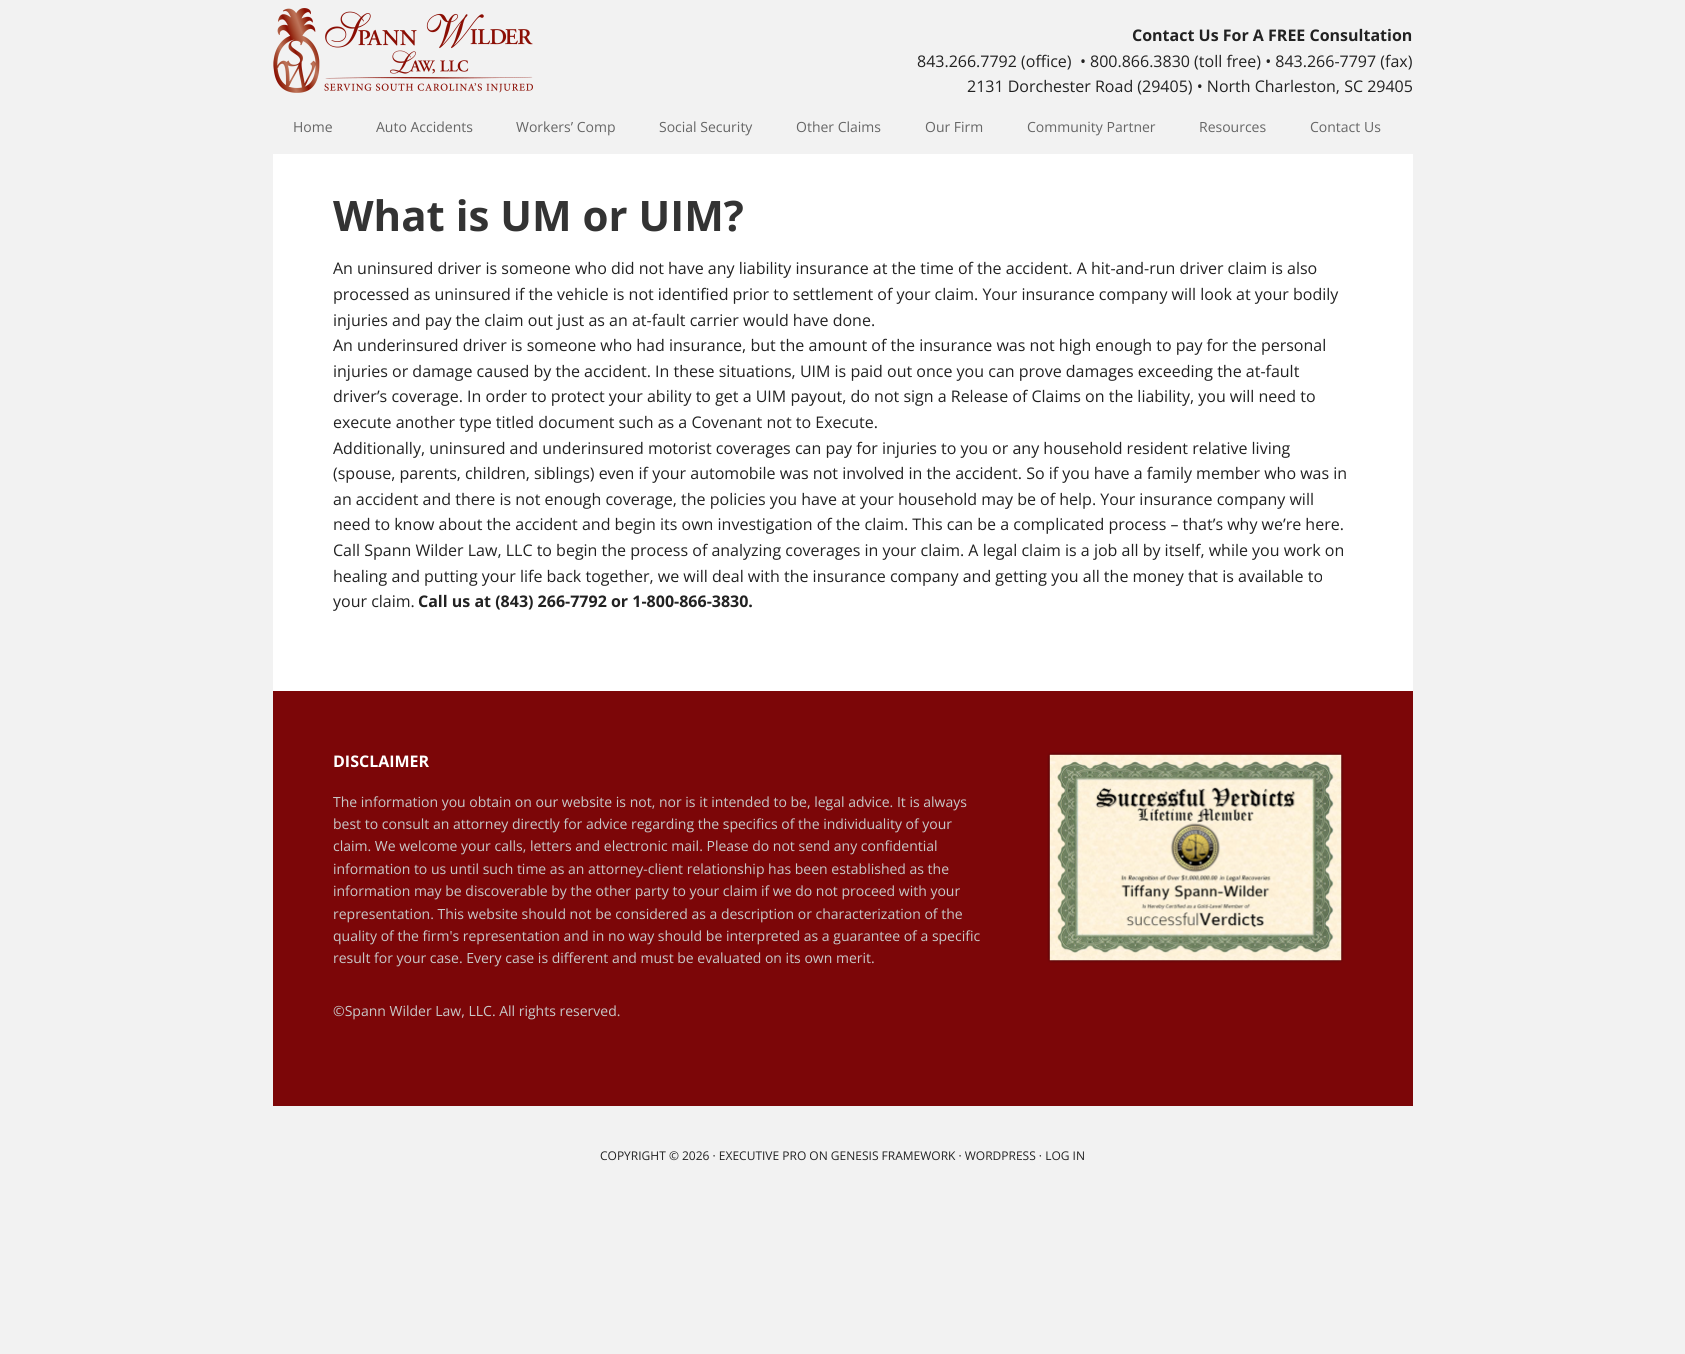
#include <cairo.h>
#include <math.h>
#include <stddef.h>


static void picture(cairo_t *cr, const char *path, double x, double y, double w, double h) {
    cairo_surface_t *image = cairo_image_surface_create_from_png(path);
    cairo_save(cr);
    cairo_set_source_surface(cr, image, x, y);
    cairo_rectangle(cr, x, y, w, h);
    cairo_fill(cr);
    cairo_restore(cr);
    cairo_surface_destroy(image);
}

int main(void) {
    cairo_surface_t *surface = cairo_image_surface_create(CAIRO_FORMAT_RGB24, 1685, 1354);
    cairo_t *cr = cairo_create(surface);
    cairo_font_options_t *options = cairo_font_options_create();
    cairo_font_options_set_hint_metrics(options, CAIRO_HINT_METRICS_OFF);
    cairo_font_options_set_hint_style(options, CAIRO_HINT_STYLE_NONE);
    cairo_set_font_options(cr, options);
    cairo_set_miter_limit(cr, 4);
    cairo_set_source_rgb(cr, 0.949, 0.949, 0.949);
    cairo_paint(cr);
    picture(cr, "img1.png", 273, 8, 260, 85);
    cairo_select_font_face(cr, "Open Sans", CAIRO_FONT_SLANT_NORMAL, CAIRO_FONT_WEIGHT_BOLD);
    cairo_set_font_size(cr, 16);
    cairo_set_source_rgb(cr, 0.133, 0.133, 0.133);
    cairo_move_to(cr, 1132, 41);
    cairo_show_text(cr, "Contact Us For A FREE Consultation");
    cairo_select_font_face(cr, "Open Sans", CAIRO_FONT_SLANT_NORMAL, CAIRO_FONT_WEIGHT_NORMAL);
    cairo_move_to(cr, 917, 67);
    cairo_show_text(cr, "843.266.7792 (office)  • 800.866.3830 (toll free) • 843.266-7797 (fax)");
    cairo_move_to(cr, 967, 92);
    cairo_show_text(cr, "2131 Dorchester Road (29405) • North Charleston, SC 29405");
    cairo_set_font_size(cr, 14);
    cairo_set_source_rgb(cr, 0.4, 0.4, 0.4);
    cairo_move_to(cr, 293, 132);
    cairo_show_text(cr, "Home");
    cairo_move_to(cr, 376, 132);
    cairo_show_text(cr, "Auto Accidents");
    cairo_move_to(cr, 516, 132);
    cairo_show_text(cr, "Workers’ Comp");
    cairo_move_to(cr, 659, 132);
    cairo_show_text(cr, "Social Security");
    cairo_move_to(cr, 796, 132);
    cairo_show_text(cr, "Other Claims");
    cairo_move_to(cr, 925, 132);
    cairo_show_text(cr, "Our Firm");
    cairo_move_to(cr, 1027, 132);
    cairo_show_text(cr, "Community Partner");
    cairo_move_to(cr, 1199, 132);
    cairo_show_text(cr, "Resources");
    cairo_move_to(cr, 1310, 132);
    cairo_show_text(cr, "Contact Us");
    cairo_set_source_rgb(cr, 1, 1, 1);
    cairo_rectangle(cr, 273, 154, 1140, 537);
    cairo_fill(cr);
    cairo_select_font_face(cr, "Open Sans", CAIRO_FONT_SLANT_NORMAL, CAIRO_FONT_WEIGHT_BOLD);
    cairo_set_font_size(cr, 42);
    cairo_set_source_rgb(cr, 0.2, 0.2, 0.2);
    cairo_move_to(cr, 333, 231);
    cairo_show_text(cr, "What is UM or UIM?");
    cairo_select_font_face(cr, "Open Sans", CAIRO_FONT_SLANT_NORMAL, CAIRO_FONT_WEIGHT_NORMAL);
    cairo_set_font_size(cr, 16);
    cairo_set_source_rgb(cr, 0.133, 0.133, 0.133);
    cairo_move_to(cr, 333, 274);
    cairo_show_text(cr, "An uninsured driver is someone who did not have any liability insurance at the time of the accident. A hit-and-run driver claim is also");
    cairo_move_to(cr, 333, 300);
    cairo_show_text(cr, "processed as uninsured if the vehicle is not identified prior to settlement of your claim. Your insurance company will look at your bodily");
    cairo_move_to(cr, 333, 326);
    cairo_show_text(cr, "injuries and pay the claim out just as an at-fault carrier would have done.");
    cairo_move_to(cr, 333, 351);
    cairo_show_text(cr, "An underinsured driver is someone who had insurance, but the amount of the insurance was not high enough to pay for the personal");
    cairo_move_to(cr, 333, 377);
    cairo_show_text(cr, "injuries or damage caused by the accident. In these situations, UIM is paid out once you can prove damages exceeding the at-fault");
    cairo_move_to(cr, 333, 402);
    cairo_show_text(cr, "driver’s coverage. In order to protect your ability to get a UIM payout, do not sign a Release of Claims on the liability, you will need to");
    cairo_move_to(cr, 333, 428);
    cairo_show_text(cr, "execute another type titled document such as a Covenant not to Execute.");
    cairo_move_to(cr, 333, 454);
    cairo_show_text(cr, "Additionally, uninsured and underinsured motorist coverages can pay for injuries to you or any household resident relative living");
    cairo_move_to(cr, 333, 479);
    cairo_show_text(cr, "(spouse, parents, children, siblings) even if your automobile was not involved in the accident. So if you have a family member who was in");
    cairo_move_to(cr, 333, 505);
    cairo_show_text(cr, "an accident and there is not enough coverage, the policies you have at your household may be of help. Your insurance company will");
    cairo_move_to(cr, 333, 530);
    cairo_show_text(cr, "need to know about the accident and begin its own investigation of the claim. This can be a complicated process – that’s why we’re here.");
    cairo_move_to(cr, 333, 556);
    cairo_show_text(cr, "Call Spann Wilder Law, LLC to begin the process of analyzing coverages in your claim. A legal claim is a job all by itself, while you work on");
    cairo_move_to(cr, 333, 582);
    cairo_show_text(cr, "healing and putting your life back together, we will deal with the insurance company and getting you all the money that is available to");
    cairo_move_to(cr, 333, 607);
    cairo_show_text(cr, "your claim.");
    cairo_select_font_face(cr, "Open Sans", CAIRO_FONT_SLANT_NORMAL, CAIRO_FONT_WEIGHT_BOLD);
    cairo_move_to(cr, 418, 607);
    cairo_show_text(cr, "Call us at (843) 266-7792 or 1-800-866-3830.");
    cairo_set_source_rgb(cr, 0.486, 0.027, 0.035);
    cairo_rectangle(cr, 273, 691, 1140, 415);
    cairo_fill(cr);
    cairo_set_source_rgb(cr, 1, 1, 1);
    cairo_move_to(cr, 333, 767);
    cairo_show_text(cr, "DISCLAIMER");
    cairo_select_font_face(cr, "Open Sans", CAIRO_FONT_SLANT_NORMAL, CAIRO_FONT_WEIGHT_NORMAL);
    cairo_set_font_size(cr, 14);
    cairo_set_source_rgb(cr, 0.784, 0.784, 0.784);
    cairo_move_to(cr, 333, 807);
    cairo_show_text(cr, "The information you obtain on our website is not, nor is it intended to be, legal advice. It is always");
    cairo_move_to(cr, 333, 829);
    cairo_show_text(cr, "best to consult an attorney directly for advice regarding the specifics of the individuality of your");
    cairo_move_to(cr, 333, 851);
    cairo_show_text(cr, "claim. We welcome your calls, letters and electronic mail. Please do not send any confidential");
    cairo_move_to(cr, 333, 874);
    cairo_show_text(cr, "information to us until such time as an attorney-client relationship has been established as the");
    cairo_move_to(cr, 333, 896);
    cairo_show_text(cr, "information may be discoverable by the other party to your claim if we do not proceed with your");
    cairo_move_to(cr, 333, 919);
    cairo_show_text(cr, "representation. This website should not be considered as a description or characterization of the");
    cairo_move_to(cr, 333, 941);
    cairo_show_text(cr, "quality of the firm's representation and in no way should be interpreted as a guarantee of a specific");
    cairo_move_to(cr, 333, 963);
    cairo_show_text(cr, "result for your case. Every case is different and must be evaluated on its own merit.");
    cairo_move_to(cr, 333, 1016);
    cairo_show_text(cr, "©Spann Wilder Law, LLC. All rights reserved.");
    picture(cr, "img2.png", 1047, 752, 297, 211);
    cairo_set_font_size(cr, 12);
    cairo_set_source_rgb(cr, 0.133, 0.133, 0.133);
    cairo_move_to(cr, 600, 1160);
    cairo_show_text(cr, "COPYRIGHT © 2026 · EXECUTIVE PRO ON GENESIS FRAMEWORK · WORDPRESS · LOG IN");
    cairo_surface_write_to_png(surface, "page.png");
    cairo_font_options_destroy(options);
    cairo_destroy(cr);
    cairo_surface_destroy(surface);
    return 0;
}
